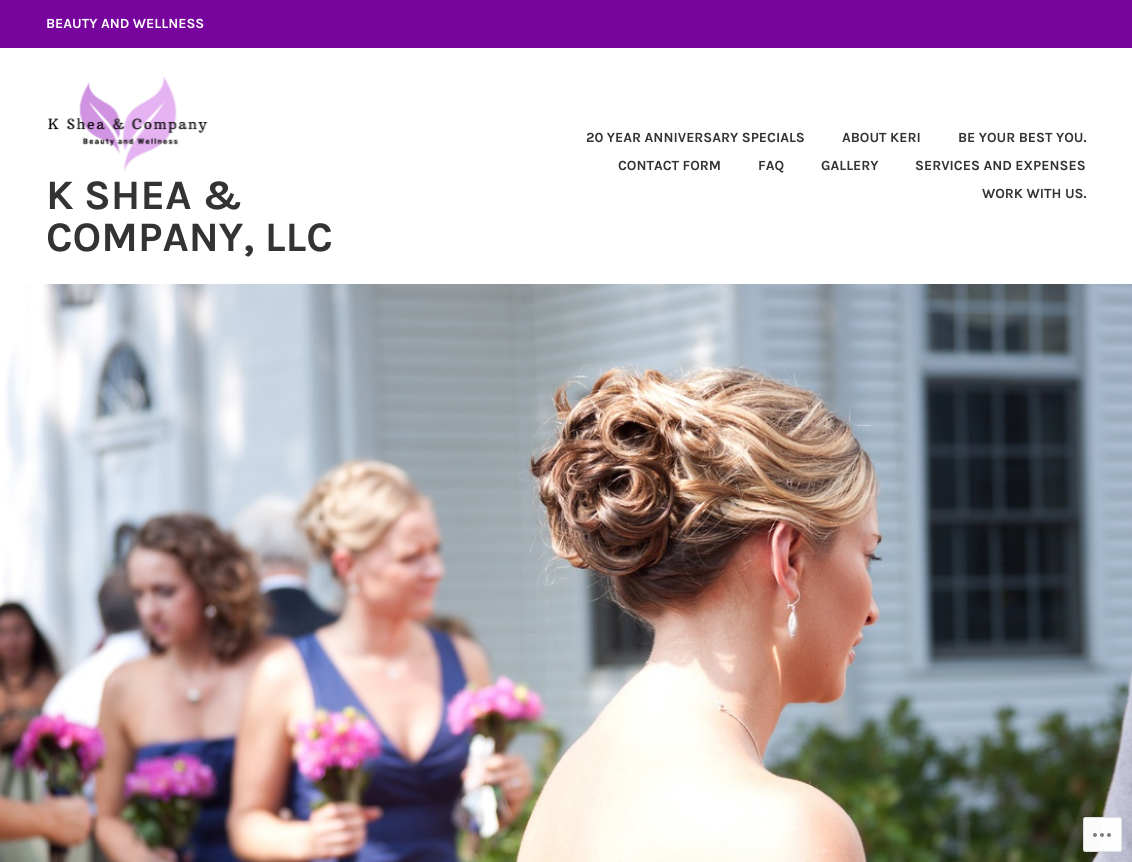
#include <cairo.h>
#include <math.h>
#include <stddef.h>


static void round_rect(cairo_t *cr, double x, double y, double w, double h, double r) {
    cairo_new_sub_path(cr);
    cairo_arc(cr, x + w - r, y + h - r, r, 0, M_PI / 2);
    cairo_arc(cr, x + r, y + h - r, r, M_PI / 2, M_PI);
    cairo_arc(cr, x + r, y + r, r, M_PI, 1.5 * M_PI);
    cairo_arc(cr, x + w - r, y + r, r, 1.5 * M_PI, 2 * M_PI);
    cairo_close_path(cr);
}

static void picture(cairo_t *cr, const char *path, double x, double y, double w, double h) {
    cairo_surface_t *image = cairo_image_surface_create_from_png(path);
    cairo_save(cr);
    cairo_set_source_surface(cr, image, x, y);
    cairo_rectangle(cr, x, y, w, h);
    cairo_fill(cr);
    cairo_restore(cr);
    cairo_surface_destroy(image);
}

int main(void) {
    cairo_surface_t *surface = cairo_image_surface_create(CAIRO_FORMAT_RGB24, 1132, 862);
    cairo_t *cr = cairo_create(surface);
    cairo_font_options_t *options = cairo_font_options_create();
    cairo_font_options_set_hint_metrics(options, CAIRO_HINT_METRICS_OFF);
    cairo_font_options_set_hint_style(options, CAIRO_HINT_STYLE_NONE);
    cairo_set_font_options(cr, options);
    cairo_set_miter_limit(cr, 4);
    cairo_set_source_rgb(cr, 1, 1, 1);
    cairo_paint(cr);
    cairo_set_source_rgb(cr, 0.467, 0.02, 0.616);
    cairo_rectangle(cr, 0, 0, 1132, 48);
    cairo_fill(cr);
    cairo_select_font_face(cr, "Karla", CAIRO_FONT_SLANT_NORMAL, CAIRO_FONT_WEIGHT_BOLD);
    cairo_set_font_size(cr, 14);
    cairo_set_source_rgb(cr, 1, 1, 1);
    cairo_move_to(cr, 46, 28);
    cairo_show_text(cr, "BEAUTY AND WELLNESS");
    cairo_set_source_rgb(cr, 0.2, 0.2, 0.2);
    cairo_move_to(cr, 586, 142);
    cairo_show_text(cr, "20 YEAR ANNIVERSARY SPECIALS");
    cairo_move_to(cr, 842, 142);
    cairo_show_text(cr, "ABOUT KERI");
    cairo_move_to(cr, 958, 142);
    cairo_show_text(cr, "BE YOUR BEST YOU.");
    cairo_move_to(cr, 618, 170);
    cairo_show_text(cr, "CONTACT FORM");
    cairo_move_to(cr, 758, 170);
    cairo_show_text(cr, "FAQ");
    cairo_move_to(cr, 821, 170);
    cairo_show_text(cr, "GALLERY");
    cairo_move_to(cr, 915, 170);
    cairo_show_text(cr, "SERVICES AND EXPENSES");
    cairo_move_to(cr, 982, 198);
    cairo_show_text(cr, "WORK WITH US.");
    picture(cr, "img1.png", 48, 76, 160, 96);
    cairo_set_font_size(cr, 42);
    cairo_move_to(cr, 46, 209);
    cairo_show_text(cr, "K SHEA &");
    cairo_move_to(cr, 46, 251);
    cairo_show_text(cr, "COMPANY, LLC");
    picture(cr, "img2.png", 0, 284, 1132, 578);
    cairo_set_source_rgba(cr, 1, 1, 1, 0.98);
    round_rect(cr, 1083, 817, 39, 35, 3);
    cairo_fill(cr);
    round_rect(cr, 1083.5, 817.5, 38, 34, 2.5);
    cairo_set_source_rgba(cr, 0.863, 0.863, 0.871, 0.98);
    cairo_set_line_width(cr, 1);
    cairo_stroke(cr);
    picture(cr, "img3.png", 1093, 833, 18, 4);
    cairo_surface_write_to_png(surface, "page.png");
    cairo_font_options_destroy(options);
    cairo_destroy(cr);
    cairo_surface_destroy(surface);
    return 0;
}
